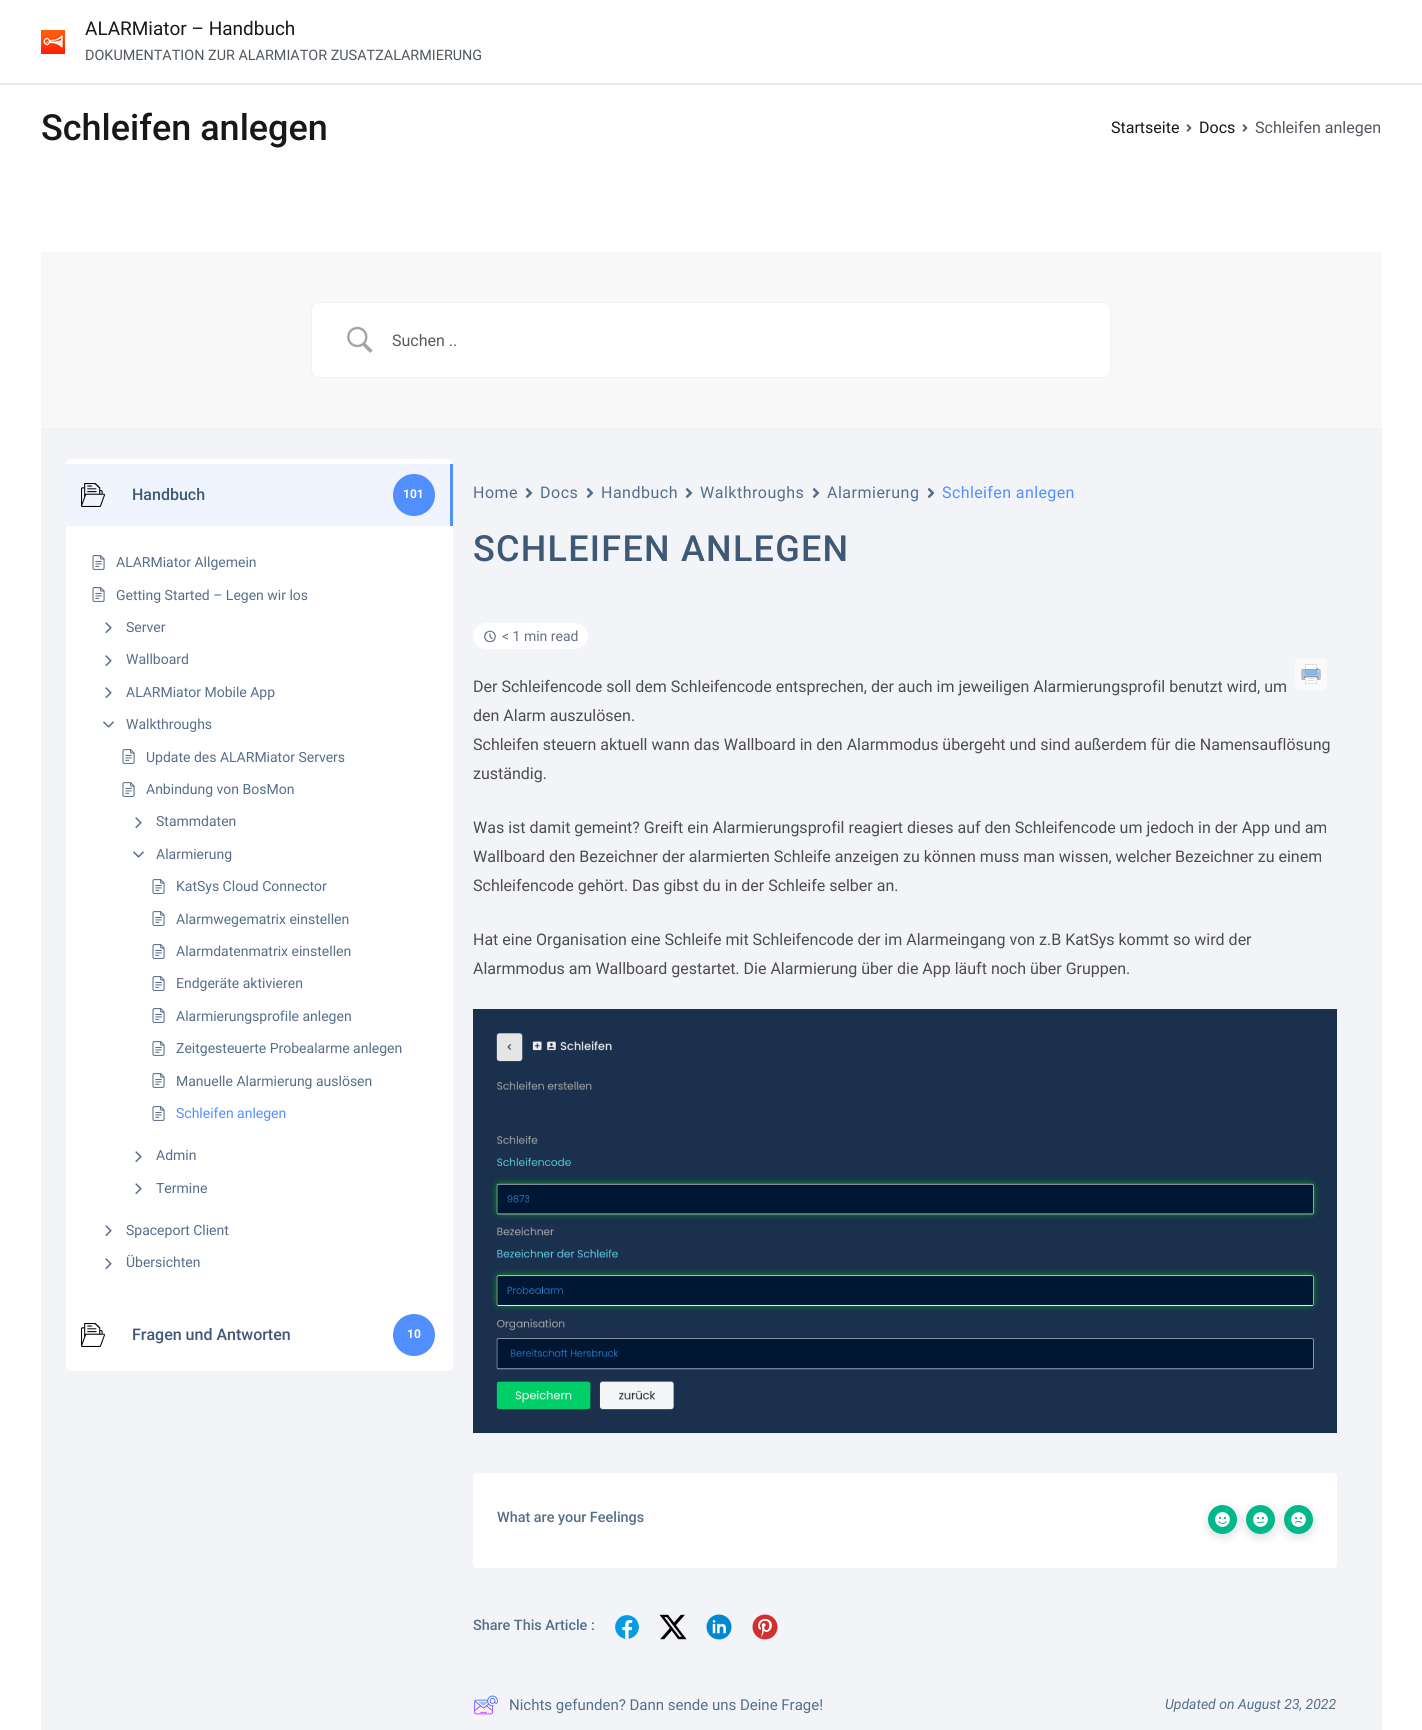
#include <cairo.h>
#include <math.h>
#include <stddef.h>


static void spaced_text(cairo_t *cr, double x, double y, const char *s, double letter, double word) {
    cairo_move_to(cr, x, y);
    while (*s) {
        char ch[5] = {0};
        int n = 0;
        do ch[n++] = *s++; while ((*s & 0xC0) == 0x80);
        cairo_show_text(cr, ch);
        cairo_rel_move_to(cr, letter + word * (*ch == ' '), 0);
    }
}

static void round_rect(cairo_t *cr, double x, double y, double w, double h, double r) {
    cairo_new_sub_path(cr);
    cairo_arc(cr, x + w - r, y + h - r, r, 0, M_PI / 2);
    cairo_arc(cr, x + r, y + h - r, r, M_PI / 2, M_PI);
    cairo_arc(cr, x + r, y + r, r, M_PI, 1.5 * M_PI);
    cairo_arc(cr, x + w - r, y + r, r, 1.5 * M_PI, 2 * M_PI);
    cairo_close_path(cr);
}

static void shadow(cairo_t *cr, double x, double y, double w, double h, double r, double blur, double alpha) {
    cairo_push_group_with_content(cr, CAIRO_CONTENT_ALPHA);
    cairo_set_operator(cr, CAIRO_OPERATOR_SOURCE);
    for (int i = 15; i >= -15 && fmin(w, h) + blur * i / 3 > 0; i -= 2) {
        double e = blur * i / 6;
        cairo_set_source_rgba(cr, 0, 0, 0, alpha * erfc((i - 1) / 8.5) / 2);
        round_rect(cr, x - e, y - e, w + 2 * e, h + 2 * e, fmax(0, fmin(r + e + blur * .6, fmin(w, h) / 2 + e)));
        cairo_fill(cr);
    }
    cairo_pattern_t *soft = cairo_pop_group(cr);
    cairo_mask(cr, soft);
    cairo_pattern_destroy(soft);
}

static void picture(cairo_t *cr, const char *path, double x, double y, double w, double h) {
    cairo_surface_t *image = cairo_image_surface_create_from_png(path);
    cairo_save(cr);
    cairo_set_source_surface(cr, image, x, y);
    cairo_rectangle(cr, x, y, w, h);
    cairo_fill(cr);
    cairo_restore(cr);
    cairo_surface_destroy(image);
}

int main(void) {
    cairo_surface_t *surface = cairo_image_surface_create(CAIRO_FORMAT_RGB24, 1422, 1730);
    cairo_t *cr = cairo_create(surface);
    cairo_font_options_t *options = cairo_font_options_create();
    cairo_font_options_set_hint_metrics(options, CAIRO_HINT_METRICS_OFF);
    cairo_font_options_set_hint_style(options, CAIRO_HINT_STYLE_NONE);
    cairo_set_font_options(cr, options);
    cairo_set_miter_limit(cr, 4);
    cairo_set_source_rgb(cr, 1, 1, 1);
    cairo_paint(cr);
    cairo_set_source_rgb(cr, 0.914, 0.925, 0.937);
    cairo_rectangle(cr, 0, 83, 1422, 2);
    cairo_fill(cr);
    picture(cr, "img1.png", 41, 30, 24, 24);
    cairo_select_font_face(cr, "Roboto", CAIRO_FONT_SLANT_NORMAL, CAIRO_FONT_WEIGHT_NORMAL);
    cairo_set_font_size(cr, 19);
    cairo_set_source_rgb(cr, 0.086, 0.094, 0.102);
    cairo_move_to(cr, 85, 35);
    cairo_show_text(cr, "ALARMiator – Handbuch");
    cairo_set_font_size(cr, 14.4);
    cairo_set_source_rgb(cr, 0.318, 0.345, 0.373);
    cairo_move_to(cr, 85, 60);
    cairo_show_text(cr, "DOKUMENTATION ZUR ALARMIATOR ZUSATZALARMIERUNG");
    cairo_select_font_face(cr, "Roboto Medium", CAIRO_FONT_SLANT_NORMAL, CAIRO_FONT_WEIGHT_NORMAL);
    cairo_set_font_size(cr, 36);
    cairo_set_source_rgb(cr, 0.086, 0.094, 0.102);
    cairo_move_to(cr, 41, 140);
    cairo_show_text(cr, "Schleifen anlegen");
    cairo_select_font_face(cr, "Roboto", CAIRO_FONT_SLANT_NORMAL, CAIRO_FONT_WEIGHT_NORMAL);
    cairo_set_font_size(cr, 16);
    cairo_move_to(cr, 1111, 133);
    cairo_show_text(cr, "Startseite");
    picture(cr, "img2.png", 1186, 124, 6, 8);
    cairo_move_to(cr, 1199, 133);
    cairo_show_text(cr, "Docs");
    picture(cr, "img2.png", 1242, 124, 6, 8);
    cairo_set_source_rgb(cr, 0.318, 0.345, 0.373);
    cairo_move_to(cr, 1255, 133);
    cairo_show_text(cr, "Schleifen anlegen");
    cairo_set_source_rgb(cr, 0.949, 0.957, 0.969);
    cairo_rectangle(cr, 41, 429, 1341, 1301);
    cairo_fill(cr);
    cairo_set_source_rgb(cr, 0.969, 0.969, 0.969);
    cairo_rectangle(cr, 41, 252, 1341, 176);
    cairo_fill(cr);
    cairo_set_source_rgb(cr, 0.945, 0.945, 0.945);
    cairo_rectangle(cr, 41, 428, 1341, 1);
    cairo_fill(cr);
    cairo_set_source_rgb(cr, 1, 1, 1);
    round_rect(cr, 311.5, 302.5, 799, 75, 7.5);
    cairo_fill_preserve(cr);
    cairo_set_source_rgb(cr, 0.945, 0.945, 0.945);
    cairo_set_line_width(cr, 1);
    cairo_stroke(cr);
    picture(cr, "img3.png", 347, 326, 26, 27);
    cairo_set_source_rgb(cr, 0.349, 0.349, 0.349);
    cairo_move_to(cr, 392, 346);
    cairo_show_text(cr, "Suchen ..");
    cairo_set_source_rgb(cr, 1, 1, 1);
    round_rect(cr, 66, 459, 387, 912, 5);
    cairo_fill(cr);
    cairo_set_source_rgb(cr, 0.937, 0.957, 1);
    cairo_rectangle(cr, 66, 464, 384, 62);
    cairo_fill(cr);
    cairo_set_source_rgb(cr, 0.322, 0.561, 1);
    cairo_rectangle(cr, 450, 464, 3, 62);
    cairo_fill(cr);
    picture(cr, "img4.png", 81, 483, 24, 24);
    cairo_select_font_face(cr, "Roboto Medium", CAIRO_FONT_SLANT_NORMAL, CAIRO_FONT_WEIGHT_NORMAL);
    cairo_set_source_rgb(cr, 0.247, 0.345, 0.463);
    cairo_move_to(cr, 132, 500);
    cairo_show_text(cr, "Handbuch");
    cairo_set_source_rgb(cr, 0.322, 0.561, 0.996);
    cairo_new_path(cr);
    cairo_arc(cr, 414, 495, 21, 0, 2 * M_PI);
    cairo_fill(cr);
    cairo_select_font_face(cr, "Roboto", CAIRO_FONT_SLANT_NORMAL, CAIRO_FONT_WEIGHT_BOLD);
    cairo_set_font_size(cr, 12);
    cairo_set_source_rgb(cr, 1, 1, 1);
    cairo_move_to(cr, 403, 498);
    cairo_show_text(cr, "101");
    picture(cr, "img5.png", 92, 555, 13, 15);
    cairo_select_font_face(cr, "Roboto", CAIRO_FONT_SLANT_NORMAL, CAIRO_FONT_WEIGHT_NORMAL);
    cairo_set_font_size(cr, 14);
    cairo_set_source_rgb(cr, 0.337, 0.431, 0.545);
    cairo_move_to(cr, 116, 567);
    cairo_show_text(cr, "ALARMiator Allgemein");
    picture(cr, "img5.png", 92, 587, 13, 15);
    cairo_move_to(cr, 116, 600);
    cairo_show_text(cr, "Getting Started – Legen wir los");
    picture(cr, "img6.png", 105, 622, 7, 12);
    cairo_move_to(cr, 126, 632);
    cairo_show_text(cr, "Server");
    picture(cr, "img6.png", 105, 655, 7, 12);
    cairo_move_to(cr, 126, 664);
    cairo_show_text(cr, "Wallboard");
    picture(cr, "img6.png", 105, 687, 7, 12);
    cairo_move_to(cr, 126, 697);
    cairo_show_text(cr, "ALARMiator Mobile App");
    picture(cr, "img7.png", 103, 721, 11, 7);
    cairo_move_to(cr, 126, 729);
    cairo_show_text(cr, "Walkthroughs");
    picture(cr, "img5.png", 122, 749, 13, 15);
    cairo_move_to(cr, 146, 762);
    cairo_show_text(cr, "Update des ALARMiator Servers");
    picture(cr, "img5.png", 122, 782, 13, 15);
    cairo_move_to(cr, 146, 794);
    cairo_show_text(cr, "Anbindung von BosMon");
    picture(cr, "img6.png", 135, 817, 7, 12);
    cairo_move_to(cr, 156, 826);
    cairo_show_text(cr, "Stammdaten");
    picture(cr, "img7.png", 133, 851, 11, 7);
    cairo_move_to(cr, 156, 859);
    cairo_show_text(cr, "Alarmierung");
    picture(cr, "img5.png", 152, 879, 13, 15);
    cairo_move_to(cr, 176, 891);
    cairo_show_text(cr, "KatSys Cloud Connector");
    picture(cr, "img5.png", 152, 911, 13, 15);
    cairo_move_to(cr, 176, 924);
    cairo_show_text(cr, "Alarmwegematrix einstellen");
    picture(cr, "img5.png", 152, 944, 13, 15);
    cairo_move_to(cr, 176, 956);
    cairo_show_text(cr, "Alarmdatenmatrix einstellen");
    picture(cr, "img5.png", 152, 976, 13, 15);
    cairo_move_to(cr, 176, 988);
    cairo_show_text(cr, "Endgeräte aktivieren");
    picture(cr, "img5.png", 152, 1008, 13, 15);
    cairo_move_to(cr, 176, 1021);
    cairo_show_text(cr, "Alarmierungsprofile anlegen");
    picture(cr, "img5.png", 152, 1041, 13, 15);
    cairo_move_to(cr, 176, 1053);
    cairo_show_text(cr, "Zeitgesteuerte Probealarme anlegen");
    picture(cr, "img5.png", 152, 1073, 13, 15);
    cairo_move_to(cr, 176, 1086);
    cairo_show_text(cr, "Manuelle Alarmierung auslösen");
    picture(cr, "img5.png", 152, 1106, 13, 15);
    cairo_set_source_rgb(cr, 0.322, 0.561, 1);
    cairo_move_to(cr, 176, 1118);
    cairo_show_text(cr, "Schleifen anlegen");
    picture(cr, "img6.png", 135, 1151, 7, 12);
    cairo_set_source_rgb(cr, 0.337, 0.431, 0.545);
    cairo_move_to(cr, 156, 1160);
    cairo_show_text(cr, "Admin");
    picture(cr, "img6.png", 135, 1183, 7, 12);
    cairo_move_to(cr, 156, 1193);
    cairo_show_text(cr, "Termine");
    picture(cr, "img6.png", 105, 1225, 7, 12);
    cairo_move_to(cr, 126, 1235);
    cairo_show_text(cr, "Spaceport Client");
    picture(cr, "img6.png", 105, 1258, 7, 12);
    cairo_move_to(cr, 126, 1267);
    cairo_show_text(cr, "Übersichten");
    picture(cr, "img8.png", 81, 1323, 24, 24);
    cairo_select_font_face(cr, "Roboto Medium", CAIRO_FONT_SLANT_NORMAL, CAIRO_FONT_WEIGHT_NORMAL);
    cairo_set_font_size(cr, 16);
    cairo_set_source_rgb(cr, 0.247, 0.345, 0.463);
    cairo_move_to(cr, 132, 1340);
    cairo_show_text(cr, "Fragen und Antworten");
    cairo_set_source_rgb(cr, 0.322, 0.561, 0.996);
    cairo_new_path(cr);
    cairo_arc(cr, 414, 1335, 21, 0, 2 * M_PI);
    cairo_fill(cr);
    cairo_select_font_face(cr, "Roboto", CAIRO_FONT_SLANT_NORMAL, CAIRO_FONT_WEIGHT_BOLD);
    cairo_set_font_size(cr, 12);
    cairo_set_source_rgb(cr, 1, 1, 1);
    cairo_move_to(cr, 407, 1338);
    cairo_show_text(cr, "10");
    cairo_select_font_face(cr, "Roboto", CAIRO_FONT_SLANT_NORMAL, CAIRO_FONT_WEIGHT_NORMAL);
    cairo_set_font_size(cr, 16);
    cairo_set_source_rgb(cr, 0.337, 0.431, 0.545);
    spaced_text(cr, 473, 498, "Home", 0.5, 0);
    picture(cr, "img9.png", 525, 488, 8, 10);
    spaced_text(cr, 540, 498, "Docs", 0.5, 0);
    picture(cr, "img9.png", 586, 488, 8, 10);
    spaced_text(cr, 601, 498, "Handbuch", 0.5, 0);
    picture(cr, "img9.png", 685, 488, 8, 10);
    spaced_text(cr, 700, 498, "Walkthroughs", 0.5, 0);
    picture(cr, "img9.png", 812, 488, 8, 10);
    spaced_text(cr, 827, 498, "Alarmierung", 0.5, 0);
    picture(cr, "img9.png", 927, 488, 8, 10);
    cairo_set_source_rgb(cr, 0.322, 0.561, 1);
    spaced_text(cr, 942, 498, "Schleifen anlegen", 0.4, 0);
    cairo_select_font_face(cr, "Roboto Medium", CAIRO_FONT_SLANT_NORMAL, CAIRO_FONT_WEIGHT_NORMAL);
    cairo_set_font_size(cr, 36);
    cairo_set_source_rgb(cr, 0.247, 0.345, 0.463);
    spaced_text(cr, 473, 561, "SCHLEIFEN ANLEGEN", 1.25, 0);
    cairo_set_source_rgb(cr, 1, 1, 1);
    round_rect(cr, 473, 623, 115, 26, 13);
    cairo_fill(cr);
    picture(cr, "img10.png", 484, 630, 12, 13);
    cairo_select_font_face(cr, "Roboto", CAIRO_FONT_SLANT_NORMAL, CAIRO_FONT_WEIGHT_NORMAL);
    cairo_set_font_size(cr, 14);
    cairo_set_source_rgb(cr, 0.4, 0.439, 0.522);
    cairo_move_to(cr, 502, 641);
    cairo_show_text(cr, "< 1 min read");
    cairo_set_source_rgb(cr, 0.98, 0.98, 0.98);
    round_rect(cr, 1295, 658, 32, 32, 5);
    cairo_fill(cr);
    picture(cr, "img11.png", 1301, 664, 20, 20);
    cairo_set_font_size(cr, 16);
    cairo_set_source_rgb(cr, 0.302, 0.302, 0.302);
    cairo_move_to(cr, 473, 692);
    cairo_show_text(cr, "Der Schleifencode soll dem Schleifencode entsprechen, der auch im jeweiligen Alarmierungsprofil benutzt wird, um");
    cairo_move_to(cr, 473, 721);
    cairo_show_text(cr, "den Alarm auszulösen.");
    cairo_move_to(cr, 473, 750);
    cairo_show_text(cr, "Schleifen steuern aktuell wann das Wallboard in den Alarmmodus übergeht und sind außerdem für die Namensauflösung");
    cairo_move_to(cr, 473, 779);
    cairo_show_text(cr, "zuständig.");
    cairo_move_to(cr, 473, 833);
    cairo_show_text(cr, "Was ist damit gemeint? Greift ein Alarmierungsprofil reagiert dieses auf den Schleifencode um jedoch in der App und am");
    cairo_move_to(cr, 473, 862);
    cairo_show_text(cr, "Wallboard den Bezeichner der alarmierten Schleife anzeigen zu können muss man wissen, welcher Bezeichner zu einem");
    cairo_move_to(cr, 473, 891);
    cairo_show_text(cr, "Schleifencode gehört. Das gibst du in der Schleife selber an.");
    cairo_move_to(cr, 473, 945);
    cairo_show_text(cr, "Hat eine Organisation eine Schleife mit Schleifencode der im Alarmeingang von z.B KatSys kommt so wird der");
    cairo_move_to(cr, 473, 974);
    cairo_show_text(cr, "Alarmmodus am Wallboard gestartet. Die Alarmierung über die App läuft noch über Gruppen.");
    picture(cr, "img12.png", 473, 1009, 864, 424);
    cairo_set_source_rgb(cr, 1, 1, 1);
    round_rect(cr, 473, 1473, 864, 95, 4);
    cairo_fill(cr);
    cairo_select_font_face(cr, "Roboto Medium", CAIRO_FONT_SLANT_NORMAL, CAIRO_FONT_WEIGHT_NORMAL);
    cairo_set_font_size(cr, 14.4);
    cairo_set_source_rgb(cr, 0.337, 0.431, 0.545);
    cairo_move_to(cr, 497, 1522);
    cairo_show_text(cr, "What are your Feelings");
    cairo_set_source_rgb(cr, 0.012, 0.114, 0.235);
    shadow(cr, 1208, 1508, 29, 29, 14.5, 5, 0.15);
    cairo_set_source_rgb(cr, 0, 0.722, 0.541);
    cairo_arc(cr, 1222.5, 1519.5, 14.5, 0, 2 * M_PI);
    cairo_fill(cr);
    picture(cr, "img13.png", 1215, 1512, 15, 15);
    cairo_set_source_rgb(cr, 0.012, 0.114, 0.235);
    shadow(cr, 1246, 1508, 29, 29, 14.5, 5, 0.15);
    cairo_set_source_rgb(cr, 0, 0.722, 0.541);
    cairo_arc(cr, 1260.5, 1519.5, 14.5, 0, 2 * M_PI);
    cairo_fill(cr);
    picture(cr, "img14.png", 1253, 1512, 15, 15);
    cairo_set_source_rgb(cr, 0.012, 0.114, 0.235);
    shadow(cr, 1284, 1508, 29, 29, 14.5, 5, 0.15);
    cairo_set_source_rgb(cr, 0, 0.722, 0.541);
    cairo_arc(cr, 1298.5, 1519.5, 14.5, 0, 2 * M_PI);
    cairo_fill(cr);
    picture(cr, "img15.png", 1291, 1512, 15, 15);
    cairo_set_source_rgb(cr, 0.337, 0.431, 0.545);
    cairo_move_to(cr, 473, 1630);
    cairo_show_text(cr, "Share This Article :");
    picture(cr, "img16.png", 615, 1615, 24, 24);
    picture(cr, "img17.png", 659, 1614, 28, 26);
    picture(cr, "img18.png", 706, 1614, 26, 26);
    picture(cr, "img19.png", 752, 1614, 26, 26);
    picture(cr, "img20.png", 474, 1695, 24, 20);
    cairo_select_font_face(cr, "Roboto", CAIRO_FONT_SLANT_NORMAL, CAIRO_FONT_WEIGHT_NORMAL);
    cairo_set_font_size(cr, 15);
    cairo_move_to(cr, 509, 1710);
    cairo_show_text(cr, "Nichts gefunden? Dann sende uns Deine Frage!");
    cairo_select_font_face(cr, "Roboto", CAIRO_FONT_SLANT_ITALIC, CAIRO_FONT_WEIGHT_NORMAL);
    cairo_set_font_size(cr, 14);
    cairo_move_to(cr, 1165, 1709);
    cairo_show_text(cr, "Updated on August 23, 2022");
    cairo_surface_write_to_png(surface, "page.png");
    cairo_font_options_destroy(options);
    cairo_destroy(cr);
    cairo_surface_destroy(surface);
    return 0;
}
